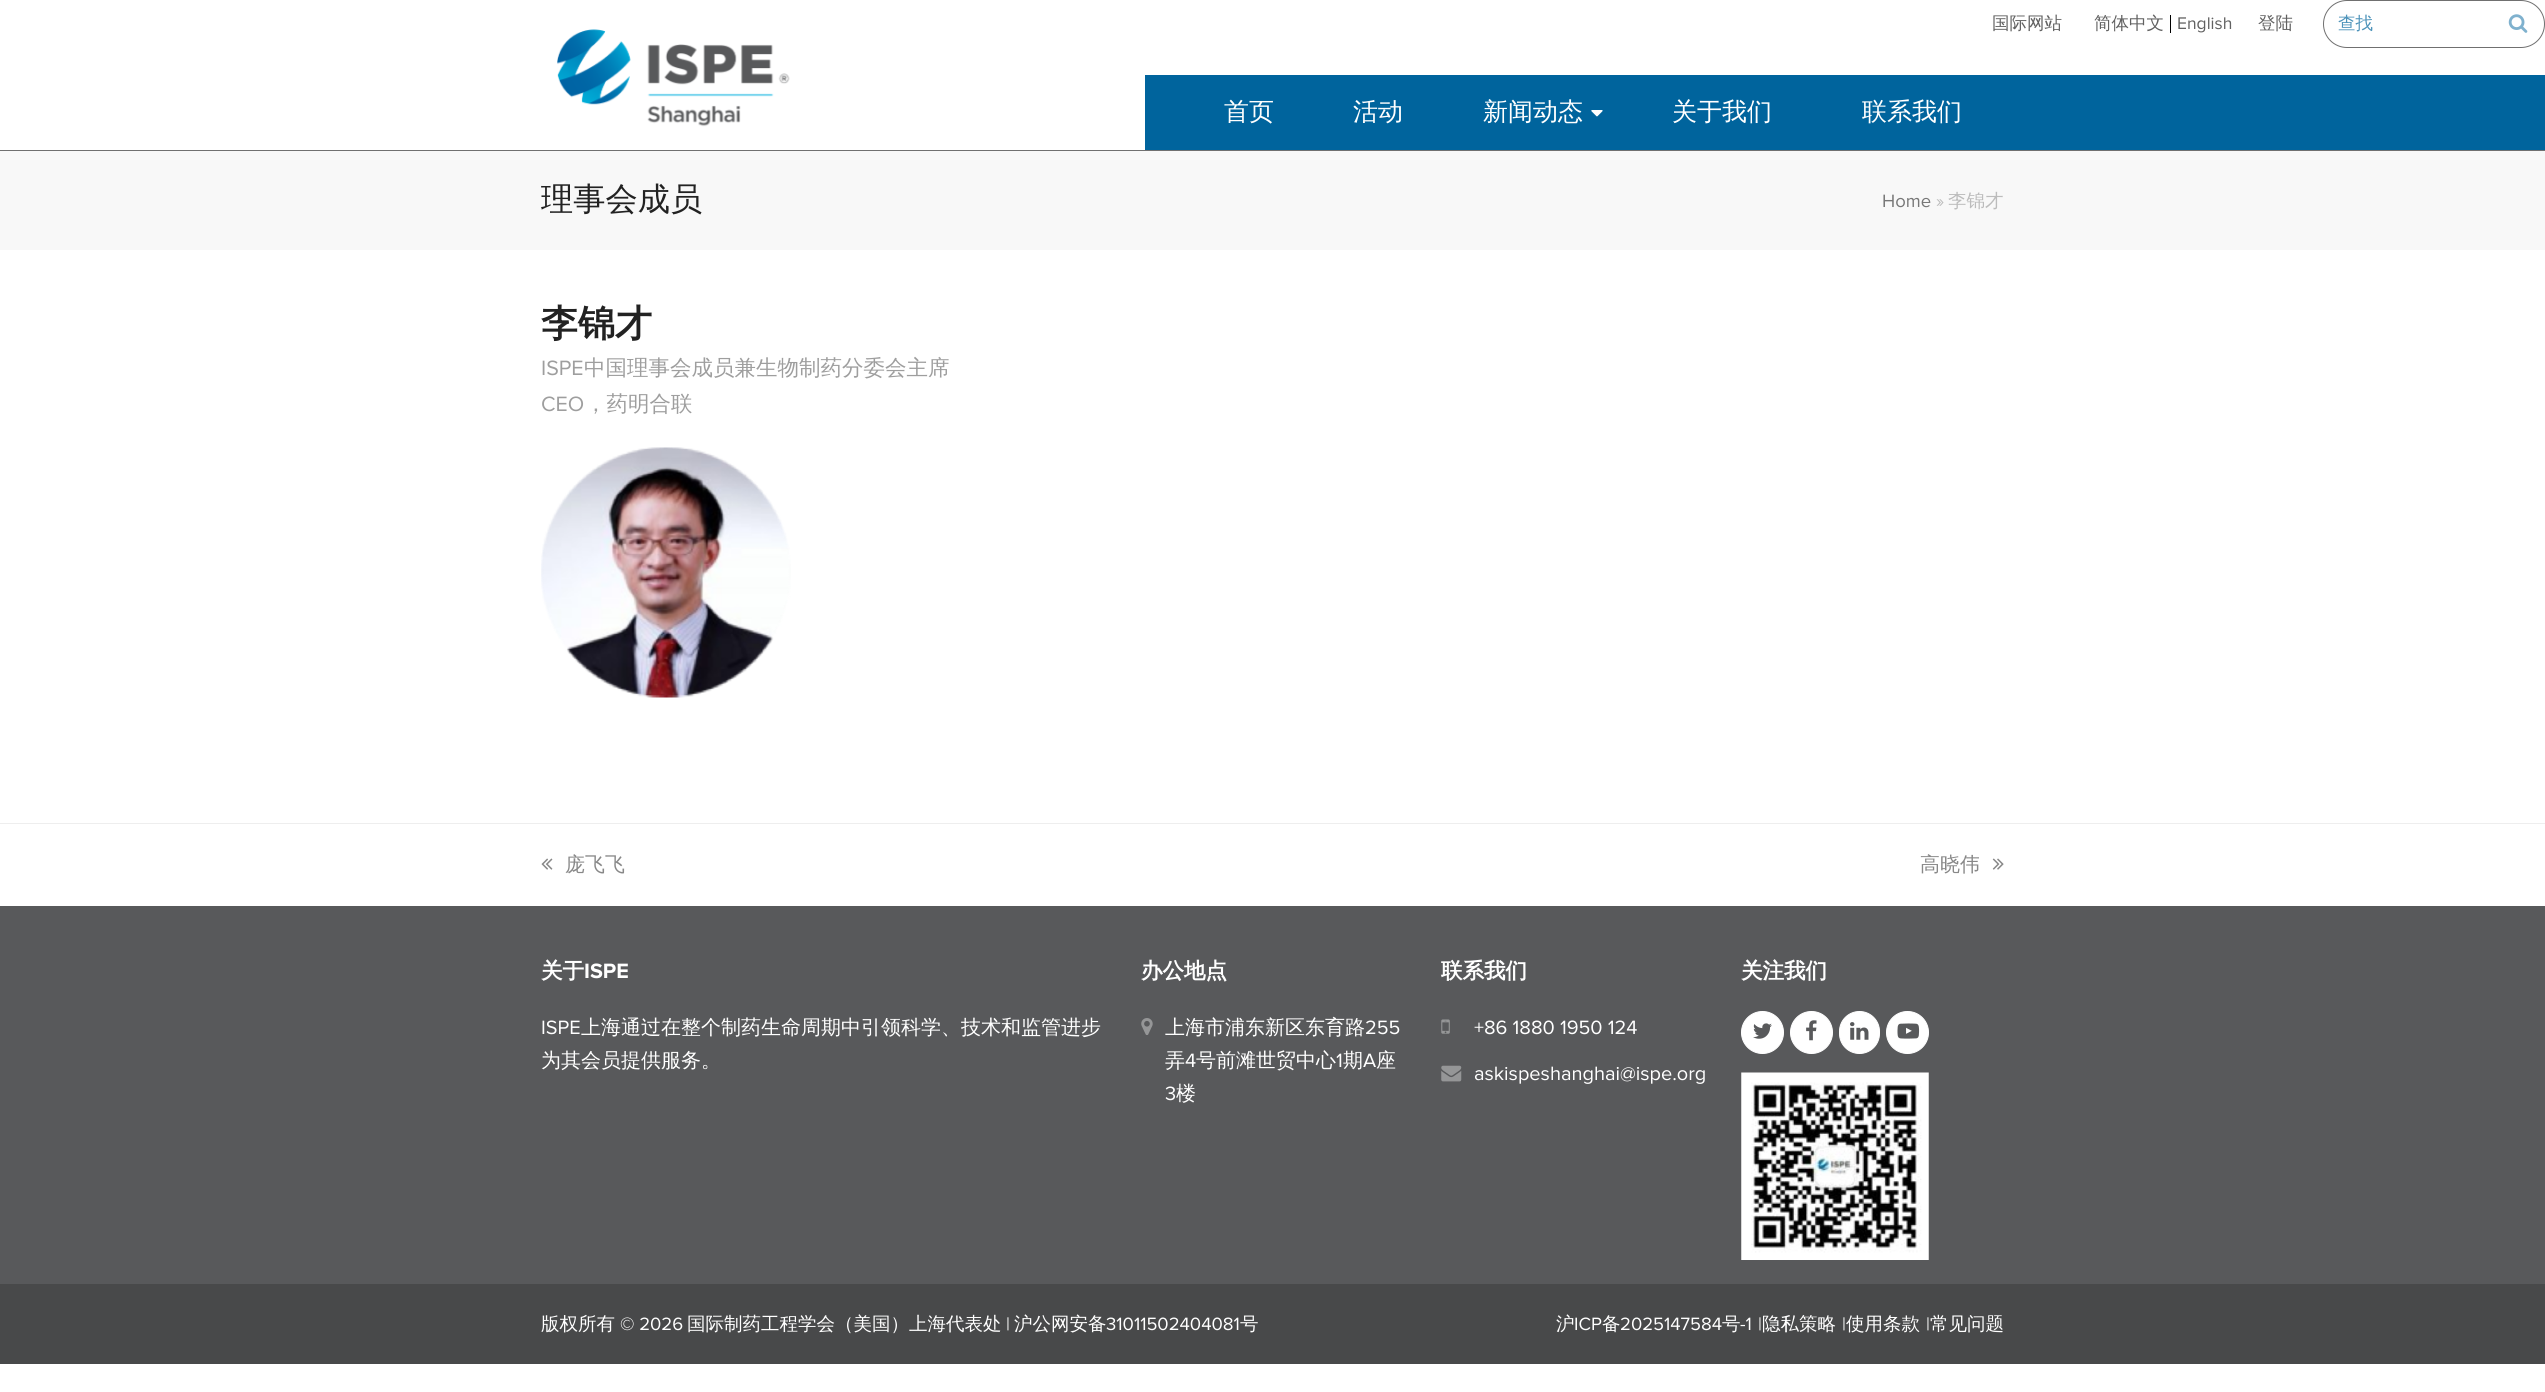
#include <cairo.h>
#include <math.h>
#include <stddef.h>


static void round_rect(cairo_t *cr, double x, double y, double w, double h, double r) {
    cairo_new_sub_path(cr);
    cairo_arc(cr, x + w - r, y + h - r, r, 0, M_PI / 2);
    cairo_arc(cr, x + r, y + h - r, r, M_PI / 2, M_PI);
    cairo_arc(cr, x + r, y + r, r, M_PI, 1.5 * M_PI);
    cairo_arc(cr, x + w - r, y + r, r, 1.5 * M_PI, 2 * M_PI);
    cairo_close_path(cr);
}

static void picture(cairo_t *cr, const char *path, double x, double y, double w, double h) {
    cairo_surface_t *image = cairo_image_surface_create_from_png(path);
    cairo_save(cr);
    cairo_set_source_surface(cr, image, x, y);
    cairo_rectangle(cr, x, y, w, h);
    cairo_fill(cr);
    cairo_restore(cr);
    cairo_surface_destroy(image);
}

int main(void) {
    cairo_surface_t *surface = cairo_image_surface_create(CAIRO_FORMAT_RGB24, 2545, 1392);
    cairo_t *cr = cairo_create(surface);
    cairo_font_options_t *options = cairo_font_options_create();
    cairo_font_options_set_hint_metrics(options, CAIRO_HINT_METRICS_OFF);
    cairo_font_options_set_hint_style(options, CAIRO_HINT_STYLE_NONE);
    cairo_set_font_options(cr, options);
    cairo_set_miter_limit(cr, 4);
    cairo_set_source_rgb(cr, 1, 1, 1);
    cairo_paint(cr);
    cairo_select_font_face(cr, "WenQuanYi Zen Hei Medium", CAIRO_FONT_SLANT_NORMAL, CAIRO_FONT_WEIGHT_NORMAL);
    cairo_set_font_size(cr, 17.5);
    cairo_set_source_rgb(cr, 0.38, 0.38, 0.38);
    cairo_move_to(cr, 1992, 29);
    cairo_show_text(cr, "国际网站");
    cairo_set_source_rgb(cr, 0, 0, 0);
    cairo_rectangle(cr, 2170, 15, 1, 18);
    cairo_fill(cr);
    cairo_set_source_rgb(cr, 0.38, 0.38, 0.38);
    cairo_move_to(cr, 2094, 29);
    cairo_show_text(cr, "简体中文");
    cairo_select_font_face(cr, "Proxima Nova", CAIRO_FONT_SLANT_NORMAL, CAIRO_FONT_WEIGHT_NORMAL);
    cairo_move_to(cr, 2177, 29);
    cairo_show_text(cr, "English");
    cairo_select_font_face(cr, "WenQuanYi Zen Hei Medium", CAIRO_FONT_SLANT_NORMAL, CAIRO_FONT_WEIGHT_NORMAL);
    cairo_move_to(cr, 2258, 29);
    cairo_show_text(cr, "登陆");
    round_rect(cr, 2323.5, 0.5, 221, 47, 23.5);
    cairo_set_source_rgb(cr, 0.439, 0.439, 0.439);
    cairo_set_line_width(cr, 1);
    cairo_stroke(cr);
    cairo_set_source_rgb(cr, 0.302, 0.576, 0.729);
    cairo_move_to(cr, 2338, 29);
    cairo_show_text(cr, "查找");
    picture(cr, "img1.png", 2508, 14, 20, 19);
    picture(cr, "img2.png", 557, 29, 233, 98);
    cairo_set_source_rgb(cr, 0, 0.392, 0.616);
    cairo_rectangle(cr, 1145, 75, 1400, 75);
    cairo_fill(cr);
    cairo_set_font_size(cr, 25);
    cairo_set_source_rgb(cr, 1, 1, 1);
    cairo_move_to(cr, 1224, 120);
    cairo_show_text(cr, "首页");
    cairo_move_to(cr, 1353, 120);
    cairo_show_text(cr, "活动");
    cairo_move_to(cr, 1483, 120);
    cairo_show_text(cr, "新闻动态");
    picture(cr, "img3.png", 1591, 110, 12, 7);
    cairo_move_to(cr, 1672, 120);
    cairo_show_text(cr, "关于我们");
    cairo_move_to(cr, 1862, 120);
    cairo_show_text(cr, "联系我们");
    cairo_set_source_rgb(cr, 0.969, 0.969, 0.969);
    cairo_rectangle(cr, 0, 151, 2545, 99);
    cairo_fill(cr);
    cairo_set_source_rgb(cr, 0.439, 0.439, 0.439);
    cairo_rectangle(cr, 0, 150, 2545, 1);
    cairo_fill(cr);
    cairo_set_font_size(cr, 32.25);
    cairo_set_source_rgb(cr, 0.133, 0.133, 0.133);
    cairo_move_to(cr, 541, 210);
    cairo_show_text(cr, "理事会成员");
    cairo_select_font_face(cr, "Proxima Nova", CAIRO_FONT_SLANT_NORMAL, CAIRO_FONT_WEIGHT_NORMAL);
    cairo_set_font_size(cr, 18.5);
    cairo_set_source_rgb(cr, 0.467, 0.467, 0.467);
    cairo_move_to(cr, 1882, 207);
    cairo_show_text(cr, "Home");
    cairo_set_source_rgb(cr, 0.737, 0.737, 0.737);
    cairo_move_to(cr, 1936, 207);
    cairo_show_text(cr, "»");
    cairo_select_font_face(cr, "WenQuanYi Zen Hei Medium", CAIRO_FONT_SLANT_NORMAL, CAIRO_FONT_WEIGHT_NORMAL);
    cairo_move_to(cr, 1948, 207);
    cairo_show_text(cr, "李锦才");
    cairo_select_font_face(cr, "WenQuanYi Zen Hei", CAIRO_FONT_SLANT_NORMAL, CAIRO_FONT_WEIGHT_BOLD);
    cairo_set_font_size(cr, 37);
    cairo_set_source_rgb(cr, 0.133, 0.133, 0.133);
    cairo_move_to(cr, 541, 336);
    cairo_show_text(cr, "李锦才");
    cairo_select_font_face(cr, "Proxima Nova", CAIRO_FONT_SLANT_NORMAL, CAIRO_FONT_WEIGHT_NORMAL);
    cairo_set_font_size(cr, 21.5);
    cairo_set_source_rgb(cr, 0.62, 0.62, 0.62);
    cairo_move_to(cr, 541, 375);
    cairo_show_text(cr, "ISPE");
    cairo_select_font_face(cr, "WenQuanYi Zen Hei Medium", CAIRO_FONT_SLANT_NORMAL, CAIRO_FONT_WEIGHT_NORMAL);
    cairo_move_to(cr, 584, 375);
    cairo_show_text(cr, "中国理事会成员兼生物制药分委会主席");
    cairo_select_font_face(cr, "Proxima Nova", CAIRO_FONT_SLANT_NORMAL, CAIRO_FONT_WEIGHT_NORMAL);
    cairo_move_to(cr, 541, 411);
    cairo_show_text(cr, "CEO");
    cairo_select_font_face(cr, "WenQuanYi Zen Hei Medium", CAIRO_FONT_SLANT_NORMAL, CAIRO_FONT_WEIGHT_NORMAL);
    cairo_move_to(cr, 585, 411);
    cairo_show_text(cr, "，药明合联");
    picture(cr, "img4.png", 541, 447, 250, 251);
    cairo_set_source_rgb(cr, 0.933, 0.933, 0.933);
    cairo_rectangle(cr, 0, 823, 2545, 1);
    cairo_fill(cr);
    picture(cr, "img5.png", 541, 858, 12, 12);
    cairo_set_font_size(cr, 20);
    cairo_set_source_rgb(cr, 0.533, 0.533, 0.533);
    cairo_move_to(cr, 565, 871);
    cairo_show_text(cr, "庞飞飞");
    cairo_move_to(cr, 1920, 871);
    cairo_show_text(cr, "高晓伟");
    picture(cr, "img6.png", 1992, 858, 12, 12);
    cairo_set_source_rgb(cr, 0.345, 0.349, 0.357);
    cairo_rectangle(cr, 0, 906, 2545, 378);
    cairo_fill(cr);
    cairo_select_font_face(cr, "WenQuanYi Zen Hei", CAIRO_FONT_SLANT_NORMAL, CAIRO_FONT_WEIGHT_BOLD);
    cairo_set_font_size(cr, 21.5);
    cairo_set_source_rgb(cr, 1, 1, 1);
    cairo_move_to(cr, 541, 978);
    cairo_show_text(cr, "关于");
    cairo_select_font_face(cr, "Proxima Nova", CAIRO_FONT_SLANT_NORMAL, CAIRO_FONT_WEIGHT_BOLD);
    cairo_move_to(cr, 584, 978);
    cairo_show_text(cr, "ISPE");
    cairo_select_font_face(cr, "Proxima Nova", CAIRO_FONT_SLANT_NORMAL, CAIRO_FONT_WEIGHT_NORMAL);
    cairo_set_font_size(cr, 20);
    cairo_move_to(cr, 541, 1034);
    cairo_show_text(cr, "ISPE");
    cairo_select_font_face(cr, "WenQuanYi Zen Hei Medium", CAIRO_FONT_SLANT_NORMAL, CAIRO_FONT_WEIGHT_NORMAL);
    cairo_move_to(cr, 581, 1034);
    cairo_show_text(cr, "上海通过在整个制药生命周期中引领科学、技术和监管进步");
    cairo_move_to(cr, 541, 1067);
    cairo_show_text(cr, "为其会员提供服务。");
    cairo_select_font_face(cr, "WenQuanYi Zen Hei", CAIRO_FONT_SLANT_NORMAL, CAIRO_FONT_WEIGHT_BOLD);
    cairo_set_font_size(cr, 21.5);
    cairo_move_to(cr, 1141, 978);
    cairo_show_text(cr, "办公地点");
    picture(cr, "img7.png", 1141, 1018, 12, 17);
    cairo_select_font_face(cr, "WenQuanYi Zen Hei Medium", CAIRO_FONT_SLANT_NORMAL, CAIRO_FONT_WEIGHT_NORMAL);
    cairo_set_font_size(cr, 20);
    cairo_move_to(cr, 1165, 1034);
    cairo_show_text(cr, "上海市浦东新区东育路");
    cairo_select_font_face(cr, "Proxima Nova", CAIRO_FONT_SLANT_NORMAL, CAIRO_FONT_WEIGHT_NORMAL);
    cairo_move_to(cr, 1365, 1034);
    cairo_show_text(cr, "255");
    cairo_select_font_face(cr, "WenQuanYi Zen Hei Medium", CAIRO_FONT_SLANT_NORMAL, CAIRO_FONT_WEIGHT_NORMAL);
    cairo_move_to(cr, 1165, 1067);
    cairo_show_text(cr, "弄");
    cairo_select_font_face(cr, "Proxima Nova", CAIRO_FONT_SLANT_NORMAL, CAIRO_FONT_WEIGHT_NORMAL);
    cairo_move_to(cr, 1185, 1067);
    cairo_show_text(cr, "4");
    cairo_select_font_face(cr, "WenQuanYi Zen Hei Medium", CAIRO_FONT_SLANT_NORMAL, CAIRO_FONT_WEIGHT_NORMAL);
    cairo_move_to(cr, 1196, 1067);
    cairo_show_text(cr, "号前滩世贸中心");
    cairo_select_font_face(cr, "Proxima Nova", CAIRO_FONT_SLANT_NORMAL, CAIRO_FONT_WEIGHT_NORMAL);
    cairo_move_to(cr, 1336, 1067);
    cairo_show_text(cr, "1");
    cairo_select_font_face(cr, "WenQuanYi Zen Hei Medium", CAIRO_FONT_SLANT_NORMAL, CAIRO_FONT_WEIGHT_NORMAL);
    cairo_move_to(cr, 1343, 1067);
    cairo_show_text(cr, "期");
    cairo_select_font_face(cr, "Proxima Nova", CAIRO_FONT_SLANT_NORMAL, CAIRO_FONT_WEIGHT_NORMAL);
    cairo_move_to(cr, 1363, 1067);
    cairo_show_text(cr, "A");
    cairo_select_font_face(cr, "WenQuanYi Zen Hei Medium", CAIRO_FONT_SLANT_NORMAL, CAIRO_FONT_WEIGHT_NORMAL);
    cairo_move_to(cr, 1376, 1067);
    cairo_show_text(cr, "座");
    cairo_select_font_face(cr, "Proxima Nova", CAIRO_FONT_SLANT_NORMAL, CAIRO_FONT_WEIGHT_NORMAL);
    cairo_move_to(cr, 1165, 1100);
    cairo_show_text(cr, "3");
    cairo_select_font_face(cr, "WenQuanYi Zen Hei Medium", CAIRO_FONT_SLANT_NORMAL, CAIRO_FONT_WEIGHT_NORMAL);
    cairo_move_to(cr, 1176, 1100);
    cairo_show_text(cr, "楼");
    cairo_select_font_face(cr, "WenQuanYi Zen Hei", CAIRO_FONT_SLANT_NORMAL, CAIRO_FONT_WEIGHT_BOLD);
    cairo_set_font_size(cr, 21.5);
    cairo_move_to(cr, 1441, 978);
    cairo_show_text(cr, "联系我们");
    picture(cr, "img8.png", 1441, 1019, 9, 15);
    cairo_select_font_face(cr, "Proxima Nova", CAIRO_FONT_SLANT_NORMAL, CAIRO_FONT_WEIGHT_NORMAL);
    cairo_set_font_size(cr, 20);
    cairo_move_to(cr, 1474, 1034);
    cairo_show_text(cr, "+86 1880 1950 124");
    picture(cr, "img9.png", 1441, 1065, 21, 17);
    cairo_move_to(cr, 1474, 1080);
    cairo_show_text(cr, "askispeshanghai@ispe.org");
    cairo_select_font_face(cr, "WenQuanYi Zen Hei", CAIRO_FONT_SLANT_NORMAL, CAIRO_FONT_WEIGHT_BOLD);
    cairo_set_font_size(cr, 21.5);
    cairo_move_to(cr, 1741, 978);
    cairo_show_text(cr, "关注我们");
    cairo_new_path(cr);
    cairo_arc(cr, 1762.5, 1032.5, 21, 0, 2 * M_PI);
    cairo_fill_preserve(cr);
    cairo_stroke(cr);
    picture(cr, "img10.png", 1753, 1023, 19, 16);
    cairo_arc(cr, 1811.5, 1032.5, 21, 0, 2 * M_PI);
    cairo_fill_preserve(cr);
    cairo_stroke(cr);
    picture(cr, "img11.png", 1806, 1020, 11, 21);
    round_rect(cr, 1839.5, 1011.5, 40, 42, 20);
    cairo_fill_preserve(cr);
    cairo_stroke(cr);
    picture(cr, "img12.png", 1850, 1022, 19, 18);
    cairo_arc(cr, 1907.5, 1032.5, 21, 0, 2 * M_PI);
    cairo_fill_preserve(cr);
    cairo_stroke(cr);
    picture(cr, "img13.png", 1897, 1023, 23, 16);
    picture(cr, "img14.png", 1741, 1072, 188, 188);
    cairo_set_source_rgb(cr, 0.282, 0.286, 0.29);
    cairo_rectangle(cr, 0, 1284, 2545, 80);
    cairo_fill(cr);
    cairo_select_font_face(cr, "WenQuanYi Zen Hei Medium", CAIRO_FONT_SLANT_NORMAL, CAIRO_FONT_WEIGHT_NORMAL);
    cairo_set_font_size(cr, 18.5);
    cairo_set_source_rgb(cr, 1, 1, 1);
    cairo_move_to(cr, 541, 1330);
    cairo_show_text(cr, "版权所有");
    cairo_select_font_face(cr, "Proxima Nova", CAIRO_FONT_SLANT_NORMAL, CAIRO_FONT_WEIGHT_NORMAL);
    cairo_move_to(cr, 620, 1330);
    cairo_show_text(cr, "© 2026");
    cairo_select_font_face(cr, "WenQuanYi Zen Hei Medium", CAIRO_FONT_SLANT_NORMAL, CAIRO_FONT_WEIGHT_NORMAL);
    cairo_move_to(cr, 687, 1330);
    cairo_show_text(cr, "国际制药工程学会（美国）上海代表处");
    cairo_select_font_face(cr, "Proxima Nova", CAIRO_FONT_SLANT_NORMAL, CAIRO_FONT_WEIGHT_NORMAL);
    cairo_move_to(cr, 1006, 1330);
    cairo_show_text(cr, "|");
    cairo_select_font_face(cr, "WenQuanYi Zen Hei Medium", CAIRO_FONT_SLANT_NORMAL, CAIRO_FONT_WEIGHT_NORMAL);
    cairo_move_to(cr, 1014, 1330);
    cairo_show_text(cr, "沪公网安备");
    cairo_select_font_face(cr, "Proxima Nova", CAIRO_FONT_SLANT_NORMAL, CAIRO_FONT_WEIGHT_NORMAL);
    cairo_move_to(cr, 1106, 1330);
    cairo_show_text(cr, "31011502404081");
    cairo_select_font_face(cr, "WenQuanYi Zen Hei Medium", CAIRO_FONT_SLANT_NORMAL, CAIRO_FONT_WEIGHT_NORMAL);
    cairo_move_to(cr, 1240, 1330);
    cairo_show_text(cr, "号");
    cairo_move_to(cr, 1556, 1330);
    cairo_show_text(cr, "沪");
    cairo_select_font_face(cr, "Proxima Nova", CAIRO_FONT_SLANT_NORMAL, CAIRO_FONT_WEIGHT_NORMAL);
    cairo_move_to(cr, 1574, 1330);
    cairo_show_text(cr, "ICP");
    cairo_select_font_face(cr, "WenQuanYi Zen Hei Medium", CAIRO_FONT_SLANT_NORMAL, CAIRO_FONT_WEIGHT_NORMAL);
    cairo_move_to(cr, 1602, 1330);
    cairo_show_text(cr, "备");
    cairo_select_font_face(cr, "Proxima Nova", CAIRO_FONT_SLANT_NORMAL, CAIRO_FONT_WEIGHT_NORMAL);
    cairo_move_to(cr, 1620, 1330);
    cairo_show_text(cr, "2025147584");
    cairo_select_font_face(cr, "WenQuanYi Zen Hei Medium", CAIRO_FONT_SLANT_NORMAL, CAIRO_FONT_WEIGHT_NORMAL);
    cairo_move_to(cr, 1722, 1330);
    cairo_show_text(cr, "号");
    cairo_select_font_face(cr, "Proxima Nova", CAIRO_FONT_SLANT_NORMAL, CAIRO_FONT_WEIGHT_NORMAL);
    cairo_move_to(cr, 1740, 1330);
    cairo_show_text(cr, "-1");
    cairo_move_to(cr, 1758, 1330);
    cairo_show_text(cr, "|");
    cairo_select_font_face(cr, "WenQuanYi Zen Hei Medium", CAIRO_FONT_SLANT_NORMAL, CAIRO_FONT_WEIGHT_NORMAL);
    cairo_move_to(cr, 1762, 1330);
    cairo_show_text(cr, "隐私策略");
    cairo_select_font_face(cr, "Proxima Nova", CAIRO_FONT_SLANT_NORMAL, CAIRO_FONT_WEIGHT_NORMAL);
    cairo_move_to(cr, 1842, 1330);
    cairo_show_text(cr, "|");
    cairo_select_font_face(cr, "WenQuanYi Zen Hei Medium", CAIRO_FONT_SLANT_NORMAL, CAIRO_FONT_WEIGHT_NORMAL);
    cairo_move_to(cr, 1846, 1330);
    cairo_show_text(cr, "使用条款");
    cairo_select_font_face(cr, "Proxima Nova", CAIRO_FONT_SLANT_NORMAL, CAIRO_FONT_WEIGHT_NORMAL);
    cairo_move_to(cr, 1926, 1330);
    cairo_show_text(cr, "|");
    cairo_select_font_face(cr, "WenQuanYi Zen Hei Medium", CAIRO_FONT_SLANT_NORMAL, CAIRO_FONT_WEIGHT_NORMAL);
    cairo_move_to(cr, 1930, 1330);
    cairo_show_text(cr, "常见问题");
    cairo_surface_write_to_png(surface, "page.png");
    cairo_font_options_destroy(options);
    cairo_destroy(cr);
    cairo_surface_destroy(surface);
    return 0;
}
